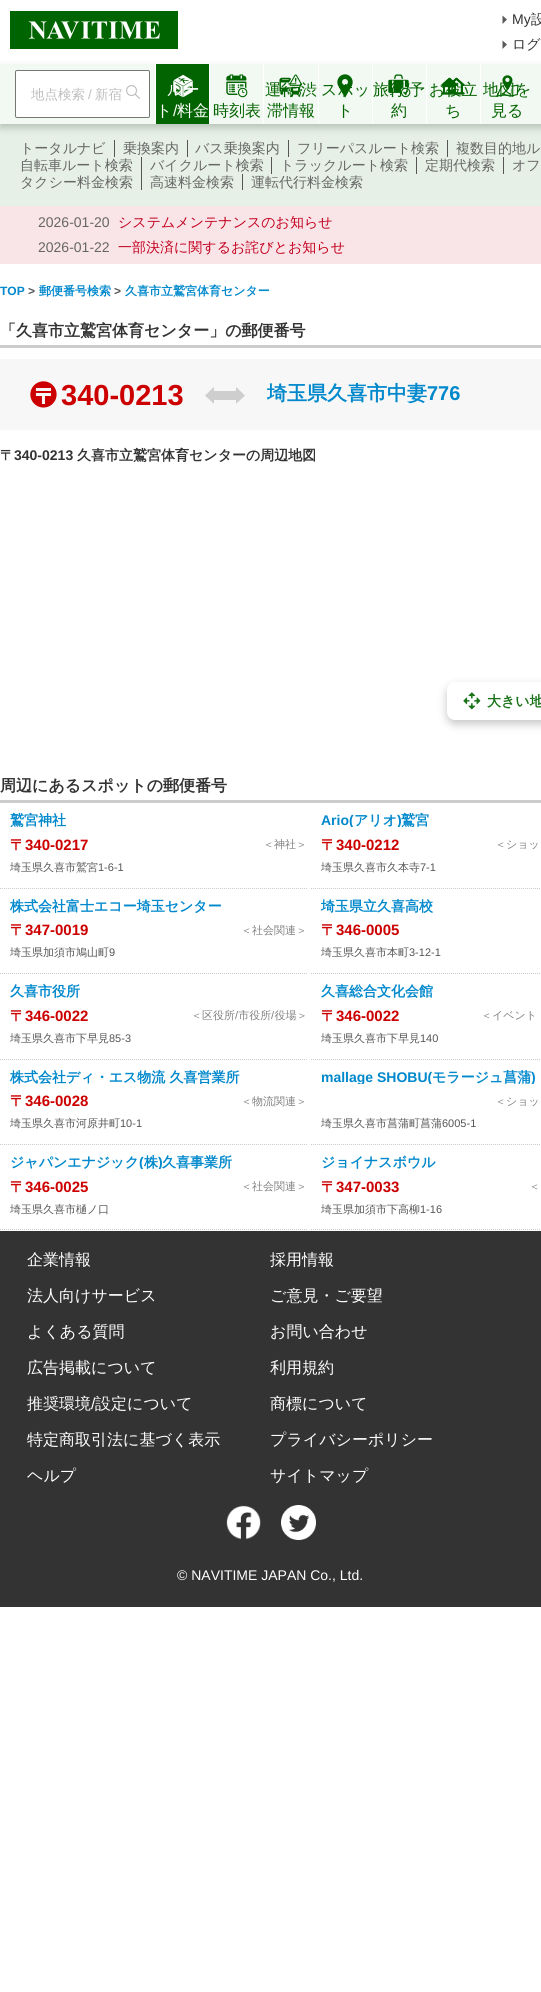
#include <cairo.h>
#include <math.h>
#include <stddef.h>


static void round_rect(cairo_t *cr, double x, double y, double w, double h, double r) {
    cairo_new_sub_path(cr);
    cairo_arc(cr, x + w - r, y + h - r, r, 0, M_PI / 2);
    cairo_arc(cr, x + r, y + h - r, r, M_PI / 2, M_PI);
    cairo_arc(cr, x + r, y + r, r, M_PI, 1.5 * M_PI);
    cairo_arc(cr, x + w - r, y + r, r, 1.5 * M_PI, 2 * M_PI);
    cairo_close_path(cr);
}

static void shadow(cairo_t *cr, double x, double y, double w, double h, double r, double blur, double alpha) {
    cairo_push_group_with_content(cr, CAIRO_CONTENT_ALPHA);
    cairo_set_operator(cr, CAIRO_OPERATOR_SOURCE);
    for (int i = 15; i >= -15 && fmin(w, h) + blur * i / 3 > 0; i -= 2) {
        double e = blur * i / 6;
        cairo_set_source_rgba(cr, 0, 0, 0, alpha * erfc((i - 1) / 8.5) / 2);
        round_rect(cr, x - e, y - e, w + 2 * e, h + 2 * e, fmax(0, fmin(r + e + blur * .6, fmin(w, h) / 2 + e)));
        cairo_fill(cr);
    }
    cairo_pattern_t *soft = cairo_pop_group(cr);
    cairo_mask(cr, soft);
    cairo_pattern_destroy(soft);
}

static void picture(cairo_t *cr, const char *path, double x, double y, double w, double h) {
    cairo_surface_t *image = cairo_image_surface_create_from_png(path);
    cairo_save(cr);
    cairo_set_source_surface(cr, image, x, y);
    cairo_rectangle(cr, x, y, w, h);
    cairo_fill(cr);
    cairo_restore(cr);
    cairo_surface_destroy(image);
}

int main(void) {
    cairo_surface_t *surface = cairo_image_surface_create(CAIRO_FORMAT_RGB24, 541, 1992);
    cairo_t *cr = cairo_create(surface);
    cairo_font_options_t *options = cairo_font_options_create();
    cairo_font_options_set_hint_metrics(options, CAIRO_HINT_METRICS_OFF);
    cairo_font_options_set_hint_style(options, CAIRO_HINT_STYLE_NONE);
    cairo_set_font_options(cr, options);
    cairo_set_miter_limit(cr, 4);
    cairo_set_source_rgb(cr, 1, 1, 1);
    cairo_paint(cr);
    picture(cr, "img1.png", 10, 11, 168, 38);
    cairo_set_source_rgb(cr, 0.353, 0.353, 0.353);
    cairo_set_fill_rule(cr, CAIRO_FILL_RULE_EVEN_ODD);
    cairo_new_path(cr);
    cairo_move_to(cr, 507, 19.5);
    cairo_line_to(cr, 502.5, 24);
    cairo_line_to(cr, 502.5, 15.5);
    cairo_close_path(cr);
    cairo_fill(cr);
    cairo_select_font_face(cr, "Liberation Sans", CAIRO_FONT_SLANT_NORMAL, CAIRO_FONT_WEIGHT_NORMAL);
    cairo_set_font_size(cr, 14);
    cairo_set_source_rgb(cr, 0.2, 0.2, 0.2);
    cairo_move_to(cr, 512, 24);
    cairo_show_text(cr, "My");
    cairo_select_font_face(cr, "WenQuanYi Zen Hei Medium", CAIRO_FONT_SLANT_NORMAL, CAIRO_FONT_WEIGHT_NORMAL);
    cairo_move_to(cr, 531, 24);
    cairo_show_text(cr, "設");
    cairo_set_source_rgb(cr, 0.353, 0.353, 0.353);
    cairo_new_path(cr);
    cairo_move_to(cr, 507, 44.5);
    cairo_line_to(cr, 502.5, 49);
    cairo_line_to(cr, 502.5, 40.5);
    cairo_close_path(cr);
    cairo_fill(cr);
    cairo_set_source_rgb(cr, 0.2, 0.2, 0.2);
    cairo_move_to(cr, 512, 49);
    cairo_show_text(cr, "ログ");
    cairo_set_source_rgb(cr, 0, 0, 0);
    shadow(cr, 0, 68, 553, 60, 0, 4, 0.2);
    cairo_set_source_rgb(cr, 0.949, 0.969, 0.949);
    cairo_rectangle(cr, 0, 64, 541, 60);
    cairo_fill(cr);
    cairo_set_source_rgb(cr, 1, 1, 1);
    round_rect(cr, 15.5, 70.5, 134, 47, 1.5);
    cairo_fill_preserve(cr);
    cairo_set_source_rgb(cr, 0.463, 0.463, 0.463);
    cairo_set_line_width(cr, 1);
    cairo_stroke(cr);
    cairo_set_font_size(cr, 13.5);
    cairo_set_source_rgb(cr, 0.745, 0.745, 0.745);
    cairo_move_to(cr, 31, 99);
    cairo_show_text(cr, "地点検索");
    cairo_select_font_face(cr, "Liberation Sans", CAIRO_FONT_SLANT_NORMAL, CAIRO_FONT_WEIGHT_NORMAL);
    cairo_move_to(cr, 88, 99);
    cairo_show_text(cr, "/");
    cairo_select_font_face(cr, "WenQuanYi Zen Hei Medium", CAIRO_FONT_SLANT_NORMAL, CAIRO_FONT_WEIGHT_NORMAL);
    cairo_move_to(cr, 95, 99);
    cairo_show_text(cr, "新宿");
    picture(cr, "img2.png", 126, 85, 14, 14);
    cairo_set_source_rgb(cr, 0.008, 0.392, 0);
    cairo_rectangle(cr, 156, 64, 53, 60);
    cairo_fill(cr);
    picture(cr, "img3.png", 173, 74, 20, 24);
    cairo_set_source_rgb(cr, 1, 1, 1);
    cairo_rectangle(cr, 155, 64, 1, 60);
    cairo_fill(cr);
    cairo_set_font_size(cr, 16);
    cairo_move_to(cr, 167, 95);
    cairo_show_text(cr, "ルー");
    cairo_move_to(cr, 156, 116);
    cairo_show_text(cr, "ト");
    cairo_select_font_face(cr, "Liberation Sans", CAIRO_FONT_SLANT_NORMAL, CAIRO_FONT_WEIGHT_NORMAL);
    cairo_move_to(cr, 173, 116);
    cairo_show_text(cr, "/");
    cairo_select_font_face(cr, "WenQuanYi Zen Hei Medium", CAIRO_FONT_SLANT_NORMAL, CAIRO_FONT_WEIGHT_NORMAL);
    cairo_move_to(cr, 177, 116);
    cairo_show_text(cr, "料金");
    picture(cr, "img4.png", 226, 74, 22, 24);
    cairo_rectangle(cr, 209, 64, 1, 60);
    cairo_fill(cr);
    cairo_set_source_rgb(cr, 0.008, 0.392, 0);
    cairo_move_to(cr, 213, 116);
    cairo_show_text(cr, "時刻表");
    picture(cr, "img5.png", 279, 74, 24, 23);
    cairo_set_source_rgb(cr, 1, 1, 1);
    cairo_rectangle(cr, 263, 64, 1, 60);
    cairo_fill(cr);
    cairo_set_source_rgb(cr, 0.008, 0.392, 0);
    cairo_move_to(cr, 265, 95);
    cairo_show_text(cr, "運行");
    cairo_select_font_face(cr, "Liberation Sans", CAIRO_FONT_SLANT_NORMAL, CAIRO_FONT_WEIGHT_NORMAL);
    cairo_move_to(cr, 297, 95);
    cairo_show_text(cr, "/");
    cairo_select_font_face(cr, "WenQuanYi Zen Hei Medium", CAIRO_FONT_SLANT_NORMAL, CAIRO_FONT_WEIGHT_NORMAL);
    cairo_move_to(cr, 301, 95);
    cairo_show_text(cr, "渋");
    cairo_move_to(cr, 267, 116);
    cairo_show_text(cr, "滞情報");
    picture(cr, "img6.png", 337, 74, 16, 24);
    cairo_set_source_rgb(cr, 1, 1, 1);
    cairo_rectangle(cr, 318, 64, 1, 60);
    cairo_fill(cr);
    cairo_set_source_rgb(cr, 0.008, 0.392, 0);
    cairo_move_to(cr, 321, 95);
    cairo_show_text(cr, "スポッ");
    cairo_move_to(cr, 337, 116);
    cairo_show_text(cr, "ト");
    picture(cr, "img7.png", 388, 74, 23, 24);
    cairo_set_source_rgb(cr, 1, 1, 1);
    cairo_rectangle(cr, 372, 64, 1, 60);
    cairo_fill(cr);
    cairo_set_source_rgb(cr, 0.008, 0.392, 0);
    cairo_move_to(cr, 373, 95);
    cairo_show_text(cr, "旅行");
    cairo_select_font_face(cr, "Liberation Sans", CAIRO_FONT_SLANT_NORMAL, CAIRO_FONT_WEIGHT_NORMAL);
    cairo_move_to(cr, 405, 95);
    cairo_show_text(cr, "/");
    cairo_select_font_face(cr, "WenQuanYi Zen Hei Medium", CAIRO_FONT_SLANT_NORMAL, CAIRO_FONT_WEIGHT_NORMAL);
    cairo_move_to(cr, 409, 95);
    cairo_show_text(cr, "予");
    cairo_move_to(cr, 391, 116);
    cairo_show_text(cr, "約");
    picture(cr, "img8.png", 441, 77, 24, 18);
    cairo_set_source_rgb(cr, 1, 1, 1);
    cairo_rectangle(cr, 426, 64, 1, 60);
    cairo_fill(cr);
    cairo_set_source_rgb(cr, 0.008, 0.392, 0);
    cairo_move_to(cr, 429, 95);
    cairo_show_text(cr, "お役立");
    cairo_move_to(cr, 445, 116);
    cairo_show_text(cr, "ち");
    picture(cr, "img9.png", 496, 75, 23, 22);
    cairo_set_source_rgb(cr, 1, 1, 1);
    cairo_rectangle(cr, 480, 64, 1, 60);
    cairo_fill(cr);
    cairo_set_source_rgb(cr, 0.008, 0.392, 0);
    cairo_move_to(cr, 483, 95);
    cairo_show_text(cr, "地図を");
    cairo_move_to(cr, 491, 116);
    cairo_show_text(cr, "見る");
    cairo_set_source_rgba(cr, 0.008, 0.392, 0, 0.1);
    cairo_rectangle(cr, 0, 124, 541, 82);
    cairo_fill(cr);
    cairo_set_source_rgb(cr, 0.333, 0.333, 0.333);
    cairo_rectangle(cr, 114, 140, 1, 17);
    cairo_fill(cr);
    cairo_set_font_size(cr, 14);
    cairo_set_source_rgb(cr, 0.4, 0.4, 0.4);
    cairo_move_to(cr, 20, 153);
    cairo_show_text(cr, "トータルナビ");
    cairo_set_source_rgb(cr, 0.333, 0.333, 0.333);
    cairo_rectangle(cr, 187, 140, 1, 17);
    cairo_fill(cr);
    cairo_set_source_rgb(cr, 0.4, 0.4, 0.4);
    cairo_move_to(cr, 123, 153);
    cairo_show_text(cr, "乗換案内");
    cairo_set_source_rgb(cr, 0.333, 0.333, 0.333);
    cairo_rectangle(cr, 288, 140, 1, 17);
    cairo_fill(cr);
    cairo_set_source_rgb(cr, 0.4, 0.4, 0.4);
    cairo_move_to(cr, 195, 153);
    cairo_show_text(cr, "バス乗換案内");
    cairo_set_source_rgb(cr, 0.333, 0.333, 0.333);
    cairo_rectangle(cr, 447, 140, 1, 17);
    cairo_fill(cr);
    cairo_set_source_rgb(cr, 0.4, 0.4, 0.4);
    cairo_move_to(cr, 297, 153);
    cairo_show_text(cr, "フリーパスルート検索");
    cairo_move_to(cr, 456, 153);
    cairo_show_text(cr, "複数目的地ル");
    cairo_set_source_rgb(cr, 0.333, 0.333, 0.333);
    cairo_rectangle(cr, 141, 157, 1, 33);
    cairo_fill(cr);
    cairo_set_source_rgb(cr, 0.4, 0.4, 0.4);
    cairo_move_to(cr, 20, 170);
    cairo_show_text(cr, "自転車ルート検索");
    cairo_set_source_rgb(cr, 0.333, 0.333, 0.333);
    cairo_rectangle(cr, 271, 157, 1, 17);
    cairo_fill(cr);
    cairo_set_source_rgb(cr, 0.4, 0.4, 0.4);
    cairo_move_to(cr, 150, 170);
    cairo_show_text(cr, "バイクルート検索");
    cairo_set_source_rgb(cr, 0.333, 0.333, 0.333);
    cairo_rectangle(cr, 416, 157, 1, 17);
    cairo_fill(cr);
    cairo_set_source_rgb(cr, 0.4, 0.4, 0.4);
    cairo_move_to(cr, 280, 170);
    cairo_show_text(cr, "トラックルート検索");
    cairo_set_source_rgb(cr, 0.333, 0.333, 0.333);
    cairo_rectangle(cr, 503, 157, 1, 17);
    cairo_fill(cr);
    cairo_set_source_rgb(cr, 0.4, 0.4, 0.4);
    cairo_move_to(cr, 425, 170);
    cairo_show_text(cr, "定期代検索");
    cairo_move_to(cr, 512, 170);
    cairo_show_text(cr, "オフ");
    cairo_move_to(cr, 20, 187);
    cairo_show_text(cr, "タクシー料金検索");
    cairo_set_source_rgb(cr, 0.333, 0.333, 0.333);
    cairo_rectangle(cr, 242, 174, 1, 16);
    cairo_fill(cr);
    cairo_set_source_rgb(cr, 0.4, 0.4, 0.4);
    cairo_move_to(cr, 150, 187);
    cairo_show_text(cr, "高速料金検索");
    cairo_move_to(cr, 251, 187);
    cairo_show_text(cr, "運転代行料金検索");
    cairo_set_source_rgb(cr, 0.976, 0.898, 0.91);
    cairo_rectangle(cr, 0, 206, 541, 58);
    cairo_fill(cr);
    cairo_select_font_face(cr, "Liberation Sans", CAIRO_FONT_SLANT_NORMAL, CAIRO_FONT_WEIGHT_NORMAL);
    cairo_set_source_rgb(cr, 0.4, 0.4, 0.4);
    cairo_move_to(cr, 38, 227);
    cairo_show_text(cr, "2026-01-20");
    cairo_select_font_face(cr, "WenQuanYi Zen Hei Medium", CAIRO_FONT_SLANT_NORMAL, CAIRO_FONT_WEIGHT_NORMAL);
    cairo_set_source_rgb(cr, 0.765, 0, 0.118);
    cairo_move_to(cr, 118, 227);
    cairo_show_text(cr, "システムメンテナンスのお知らせ");
    cairo_select_font_face(cr, "Liberation Sans", CAIRO_FONT_SLANT_NORMAL, CAIRO_FONT_WEIGHT_NORMAL);
    cairo_set_source_rgb(cr, 0.4, 0.4, 0.4);
    cairo_move_to(cr, 38, 252);
    cairo_show_text(cr, "2026-01-22");
    cairo_select_font_face(cr, "WenQuanYi Zen Hei Medium", CAIRO_FONT_SLANT_NORMAL, CAIRO_FONT_WEIGHT_NORMAL);
    cairo_set_source_rgb(cr, 0.765, 0, 0.118);
    cairo_move_to(cr, 118, 252);
    cairo_show_text(cr, "一部決済に関するお詫びとお知らせ");
    cairo_select_font_face(cr, "Liberation Sans", CAIRO_FONT_SLANT_NORMAL, CAIRO_FONT_WEIGHT_BOLD);
    cairo_set_font_size(cr, 12);
    cairo_set_source_rgb(cr, 0, 0.533, 0.8);
    cairo_move_to(cr, 0, 295);
    cairo_show_text(cr, "TOP");
    cairo_set_source_rgb(cr, 0.333, 0.333, 0.333);
    cairo_move_to(cr, 28, 295);
    cairo_show_text(cr, ">");
    cairo_select_font_face(cr, "WenQuanYi Zen Hei", CAIRO_FONT_SLANT_NORMAL, CAIRO_FONT_WEIGHT_BOLD);
    cairo_set_source_rgb(cr, 0, 0.533, 0.8);
    cairo_move_to(cr, 39, 295);
    cairo_show_text(cr, "郵便番号検索");
    cairo_select_font_face(cr, "Liberation Sans", CAIRO_FONT_SLANT_NORMAL, CAIRO_FONT_WEIGHT_BOLD);
    cairo_set_source_rgb(cr, 0.333, 0.333, 0.333);
    cairo_move_to(cr, 114, 295);
    cairo_show_text(cr, ">");
    cairo_select_font_face(cr, "WenQuanYi Zen Hei", CAIRO_FONT_SLANT_NORMAL, CAIRO_FONT_WEIGHT_BOLD);
    cairo_set_source_rgb(cr, 0, 0.533, 0.8);
    cairo_move_to(cr, 125, 295);
    cairo_show_text(cr, "久喜市立鷲宮体育センター");
    cairo_set_source_rgb(cr, 0.8, 0.8, 0.8);
    cairo_rectangle(cr, 0, 345, 541, 3);
    cairo_fill(cr);
    cairo_set_font_size(cr, 16);
    cairo_set_source_rgb(cr, 0.2, 0.2, 0.2);
    cairo_move_to(cr, 0, 336);
    cairo_show_text(cr, "「久喜市立鷲宮体育センター」の郵便番号");
    cairo_set_source_rgb(cr, 0.965, 0.965, 0.965);
    cairo_rectangle(cr, 0, 359, 541, 71);
    cairo_fill(cr);
    picture(cr, "img10.png", 30, 381, 27, 27);
    cairo_select_font_face(cr, "Liberation Sans", CAIRO_FONT_SLANT_NORMAL, CAIRO_FONT_WEIGHT_BOLD);
    cairo_set_font_size(cr, 29);
    cairo_set_source_rgb(cr, 0.8, 0, 0);
    cairo_move_to(cr, 61, 405);
    cairo_show_text(cr, "340-0213");
    picture(cr, "img11.png", 205, 387, 40, 17);
    cairo_select_font_face(cr, "WenQuanYi Zen Hei", CAIRO_FONT_SLANT_NORMAL, CAIRO_FONT_WEIGHT_BOLD);
    cairo_set_font_size(cr, 20);
    cairo_set_source_rgb(cr, 0, 0.533, 0.8);
    cairo_move_to(cr, 267, 400);
    cairo_show_text(cr, "埼玉県久喜市中妻");
    cairo_select_font_face(cr, "Liberation Sans", CAIRO_FONT_SLANT_NORMAL, CAIRO_FONT_WEIGHT_BOLD);
    cairo_move_to(cr, 427, 400);
    cairo_show_text(cr, "776");
    cairo_select_font_face(cr, "WenQuanYi Zen Hei", CAIRO_FONT_SLANT_NORMAL, CAIRO_FONT_WEIGHT_BOLD);
    cairo_set_font_size(cr, 14);
    cairo_set_source_rgb(cr, 0.2, 0.2, 0.2);
    cairo_move_to(cr, 0, 460);
    cairo_show_text(cr, "〒");
    cairo_select_font_face(cr, "Liberation Sans", CAIRO_FONT_SLANT_NORMAL, CAIRO_FONT_WEIGHT_BOLD);
    cairo_move_to(cr, 14, 460);
    cairo_show_text(cr, "340-0213");
    cairo_select_font_face(cr, "WenQuanYi Zen Hei", CAIRO_FONT_SLANT_NORMAL, CAIRO_FONT_WEIGHT_BOLD);
    cairo_move_to(cr, 77, 460);
    cairo_show_text(cr, "久喜市立鷲宮体育センターの周辺地図");
    cairo_set_source_rgb(cr, 0.102, 0.102, 0.102);
    shadow(cr, 447, 686, 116, 38, 8, 4.5, 0.25);
    cairo_set_source_rgb(cr, 1, 1, 1);
    round_rect(cr, 447, 682, 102, 38, 8);
    cairo_fill(cr);
    picture(cr, "img12.png", 463, 692, 18, 18);
    cairo_set_source_rgb(cr, 0.106, 0.455, 0.102);
    cairo_move_to(cr, 487, 706);
    cairo_show_text(cr, "大きい地");
    cairo_set_source_rgb(cr, 0.8, 0.8, 0.8);
    cairo_rectangle(cr, 0, 800, 541, 3);
    cairo_fill(cr);
    cairo_set_font_size(cr, 16);
    cairo_set_source_rgb(cr, 0.2, 0.2, 0.2);
    cairo_move_to(cr, 0, 791);
    cairo_show_text(cr, "周辺にあるスポットの郵便番号");
    cairo_new_path(cr);
    cairo_move_to(cr, 0, 888.5);
    cairo_line_to(cr, 307, 888.5);
    cairo_set_source_rgb(cr, 0.8, 0.8, 0.8);
    cairo_set_dash(cr, (double[]){1, 1}, 2, 0);
    cairo_stroke(cr);
    cairo_set_font_size(cr, 14);
    cairo_set_source_rgb(cr, 0, 0.533, 0.8);
    cairo_move_to(cr, 10, 825);
    cairo_show_text(cr, "鷲宮神社");
    cairo_set_font_size(cr, 15);
    cairo_set_source_rgb(cr, 0.8, 0, 0);
    cairo_move_to(cr, 10, 850);
    cairo_show_text(cr, "〒");
    cairo_select_font_face(cr, "Liberation Sans", CAIRO_FONT_SLANT_NORMAL, CAIRO_FONT_WEIGHT_BOLD);
    cairo_move_to(cr, 25, 850);
    cairo_show_text(cr, "340-0217");
    cairo_select_font_face(cr, "WenQuanYi Zen Hei Medium", CAIRO_FONT_SLANT_NORMAL, CAIRO_FONT_WEIGHT_NORMAL);
    cairo_set_font_size(cr, 11);
    cairo_set_source_rgb(cr, 0.502, 0.502, 0.502);
    cairo_move_to(cr, 263, 848);
    cairo_show_text(cr, "＜神社＞");
    cairo_set_source_rgb(cr, 0.333, 0.333, 0.333);
    cairo_move_to(cr, 10, 871);
    cairo_show_text(cr, "埼玉県久喜市鷲宮");
    cairo_select_font_face(cr, "Liberation Sans", CAIRO_FONT_SLANT_NORMAL, CAIRO_FONT_WEIGHT_NORMAL);
    cairo_move_to(cr, 98, 871);
    cairo_show_text(cr, "1-6-1");
    cairo_new_path(cr);
    cairo_move_to(cr, 311, 888.5);
    cairo_line_to(cr, 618, 888.5);
    cairo_set_source_rgb(cr, 0.8, 0.8, 0.8);
    cairo_stroke(cr);
    cairo_save(cr);
    cairo_set_fill_rule(cr, CAIRO_FILL_RULE_WINDING);
    cairo_rectangle(cr, 321, 813, 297, 14);
    cairo_clip(cr);
    cairo_select_font_face(cr, "Liberation Sans", CAIRO_FONT_SLANT_NORMAL, CAIRO_FONT_WEIGHT_BOLD);
    cairo_set_font_size(cr, 14);
    cairo_set_source_rgb(cr, 0, 0.533, 0.8);
    cairo_move_to(cr, 321, 825);
    cairo_show_text(cr, "Ario(");
    cairo_restore(cr);
    cairo_select_font_face(cr, "WenQuanYi Zen Hei", CAIRO_FONT_SLANT_NORMAL, CAIRO_FONT_WEIGHT_BOLD);
    cairo_set_font_size(cr, 14);
    cairo_set_source_rgb(cr, 0, 0.533, 0.8);
    cairo_move_to(cr, 354, 825);
    cairo_show_text(cr, "アリオ");
    cairo_save(cr);
    cairo_set_fill_rule(cr, CAIRO_FILL_RULE_WINDING);
    cairo_rectangle(cr, 321, 813, 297, 14);
    cairo_clip(cr);
    cairo_select_font_face(cr, "Liberation Sans", CAIRO_FONT_SLANT_NORMAL, CAIRO_FONT_WEIGHT_BOLD);
    cairo_move_to(cr, 397, 825);
    cairo_show_text(cr, ")");
    cairo_restore(cr);
    cairo_move_to(cr, 401, 825);
    cairo_show_text(cr, "鷲宮");
    cairo_set_font_size(cr, 15);
    cairo_set_source_rgb(cr, 0.8, 0, 0);
    cairo_move_to(cr, 321, 850);
    cairo_show_text(cr, "〒");
    cairo_select_font_face(cr, "Liberation Sans", CAIRO_FONT_SLANT_NORMAL, CAIRO_FONT_WEIGHT_BOLD);
    cairo_move_to(cr, 336, 850);
    cairo_show_text(cr, "340-0212");
    cairo_select_font_face(cr, "WenQuanYi Zen Hei Medium", CAIRO_FONT_SLANT_NORMAL, CAIRO_FONT_WEIGHT_NORMAL);
    cairo_set_font_size(cr, 11);
    cairo_set_source_rgb(cr, 0.502, 0.502, 0.502);
    cairo_move_to(cr, 495, 848);
    cairo_show_text(cr, "＜ショッ");
    cairo_set_source_rgb(cr, 0.333, 0.333, 0.333);
    cairo_move_to(cr, 321, 871);
    cairo_show_text(cr, "埼玉県久喜市久本寺");
    cairo_select_font_face(cr, "Liberation Sans", CAIRO_FONT_SLANT_NORMAL, CAIRO_FONT_WEIGHT_NORMAL);
    cairo_move_to(cr, 420, 871);
    cairo_show_text(cr, "7-1");
    cairo_new_path(cr);
    cairo_move_to(cr, 0, 973.5);
    cairo_line_to(cr, 307, 973.5);
    cairo_set_source_rgb(cr, 0.8, 0.8, 0.8);
    cairo_stroke(cr);
    cairo_select_font_face(cr, "WenQuanYi Zen Hei", CAIRO_FONT_SLANT_NORMAL, CAIRO_FONT_WEIGHT_BOLD);
    cairo_set_font_size(cr, 14);
    cairo_set_source_rgb(cr, 0, 0.533, 0.8);
    cairo_move_to(cr, 10, 911);
    cairo_show_text(cr, "株式会社富士エコー埼玉センター");
    cairo_set_font_size(cr, 15);
    cairo_set_source_rgb(cr, 0.8, 0, 0);
    cairo_move_to(cr, 10, 935);
    cairo_show_text(cr, "〒");
    cairo_select_font_face(cr, "Liberation Sans", CAIRO_FONT_SLANT_NORMAL, CAIRO_FONT_WEIGHT_BOLD);
    cairo_move_to(cr, 25, 935);
    cairo_show_text(cr, "347-0019");
    cairo_select_font_face(cr, "WenQuanYi Zen Hei Medium", CAIRO_FONT_SLANT_NORMAL, CAIRO_FONT_WEIGHT_NORMAL);
    cairo_set_font_size(cr, 11);
    cairo_set_source_rgb(cr, 0.502, 0.502, 0.502);
    cairo_move_to(cr, 241, 934);
    cairo_show_text(cr, "＜社会関連＞");
    cairo_set_source_rgb(cr, 0.333, 0.333, 0.333);
    cairo_move_to(cr, 10, 956);
    cairo_show_text(cr, "埼玉県加須市鳩山町");
    cairo_select_font_face(cr, "Liberation Sans", CAIRO_FONT_SLANT_NORMAL, CAIRO_FONT_WEIGHT_NORMAL);
    cairo_move_to(cr, 109, 956);
    cairo_show_text(cr, "9");
    cairo_new_path(cr);
    cairo_move_to(cr, 311, 973.5);
    cairo_line_to(cr, 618, 973.5);
    cairo_set_source_rgb(cr, 0.8, 0.8, 0.8);
    cairo_stroke(cr);
    cairo_select_font_face(cr, "WenQuanYi Zen Hei", CAIRO_FONT_SLANT_NORMAL, CAIRO_FONT_WEIGHT_BOLD);
    cairo_set_font_size(cr, 14);
    cairo_set_source_rgb(cr, 0, 0.533, 0.8);
    cairo_move_to(cr, 321, 911);
    cairo_show_text(cr, "埼玉県立久喜高校");
    cairo_set_font_size(cr, 15);
    cairo_set_source_rgb(cr, 0.8, 0, 0);
    cairo_move_to(cr, 321, 935);
    cairo_show_text(cr, "〒");
    cairo_select_font_face(cr, "Liberation Sans", CAIRO_FONT_SLANT_NORMAL, CAIRO_FONT_WEIGHT_BOLD);
    cairo_move_to(cr, 336, 935);
    cairo_show_text(cr, "346-0005");
    cairo_select_font_face(cr, "WenQuanYi Zen Hei Medium", CAIRO_FONT_SLANT_NORMAL, CAIRO_FONT_WEIGHT_NORMAL);
    cairo_set_font_size(cr, 11);
    cairo_set_source_rgb(cr, 0.333, 0.333, 0.333);
    cairo_move_to(cr, 321, 956);
    cairo_show_text(cr, "埼玉県久喜市本町");
    cairo_select_font_face(cr, "Liberation Sans", CAIRO_FONT_SLANT_NORMAL, CAIRO_FONT_WEIGHT_NORMAL);
    cairo_move_to(cr, 409, 956);
    cairo_show_text(cr, "3-12-1");
    cairo_new_path(cr);
    cairo_move_to(cr, 0, 1059.5);
    cairo_line_to(cr, 307, 1059.5);
    cairo_set_source_rgb(cr, 0.8, 0.8, 0.8);
    cairo_stroke(cr);
    cairo_select_font_face(cr, "WenQuanYi Zen Hei", CAIRO_FONT_SLANT_NORMAL, CAIRO_FONT_WEIGHT_BOLD);
    cairo_set_font_size(cr, 14);
    cairo_set_source_rgb(cr, 0, 0.533, 0.8);
    cairo_move_to(cr, 10, 996);
    cairo_show_text(cr, "久喜市役所");
    cairo_set_font_size(cr, 15);
    cairo_set_source_rgb(cr, 0.8, 0, 0);
    cairo_move_to(cr, 10, 1021);
    cairo_show_text(cr, "〒");
    cairo_select_font_face(cr, "Liberation Sans", CAIRO_FONT_SLANT_NORMAL, CAIRO_FONT_WEIGHT_BOLD);
    cairo_move_to(cr, 25, 1021);
    cairo_show_text(cr, "346-0022");
    cairo_select_font_face(cr, "WenQuanYi Zen Hei Medium", CAIRO_FONT_SLANT_NORMAL, CAIRO_FONT_WEIGHT_NORMAL);
    cairo_set_font_size(cr, 11);
    cairo_set_source_rgb(cr, 0.502, 0.502, 0.502);
    cairo_move_to(cr, 191, 1019);
    cairo_show_text(cr, "＜区役所 市役所 役場＞");
    cairo_select_font_face(cr, "Liberation Sans", CAIRO_FONT_SLANT_NORMAL, CAIRO_FONT_WEIGHT_NORMAL);
    cairo_move_to(cr, 235, 1019);
    cairo_show_text(cr, "/");
    cairo_move_to(cr, 271, 1019);
    cairo_show_text(cr, "/");
    cairo_select_font_face(cr, "WenQuanYi Zen Hei Medium", CAIRO_FONT_SLANT_NORMAL, CAIRO_FONT_WEIGHT_NORMAL);
    cairo_set_source_rgb(cr, 0.333, 0.333, 0.333);
    cairo_move_to(cr, 10, 1042);
    cairo_show_text(cr, "埼玉県久喜市下早見");
    cairo_select_font_face(cr, "Liberation Sans", CAIRO_FONT_SLANT_NORMAL, CAIRO_FONT_WEIGHT_NORMAL);
    cairo_move_to(cr, 109, 1042);
    cairo_show_text(cr, "85-3");
    cairo_new_path(cr);
    cairo_move_to(cr, 311, 1059.5);
    cairo_line_to(cr, 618, 1059.5);
    cairo_set_source_rgb(cr, 0.8, 0.8, 0.8);
    cairo_stroke(cr);
    cairo_select_font_face(cr, "WenQuanYi Zen Hei", CAIRO_FONT_SLANT_NORMAL, CAIRO_FONT_WEIGHT_BOLD);
    cairo_set_font_size(cr, 14);
    cairo_set_source_rgb(cr, 0, 0.533, 0.8);
    cairo_move_to(cr, 321, 996);
    cairo_show_text(cr, "久喜総合文化会館");
    cairo_set_font_size(cr, 15);
    cairo_set_source_rgb(cr, 0.8, 0, 0);
    cairo_move_to(cr, 321, 1021);
    cairo_show_text(cr, "〒");
    cairo_select_font_face(cr, "Liberation Sans", CAIRO_FONT_SLANT_NORMAL, CAIRO_FONT_WEIGHT_BOLD);
    cairo_move_to(cr, 336, 1021);
    cairo_show_text(cr, "346-0022");
    cairo_select_font_face(cr, "WenQuanYi Zen Hei Medium", CAIRO_FONT_SLANT_NORMAL, CAIRO_FONT_WEIGHT_NORMAL);
    cairo_set_font_size(cr, 11);
    cairo_set_source_rgb(cr, 0.502, 0.502, 0.502);
    cairo_move_to(cr, 481, 1019);
    cairo_show_text(cr, "＜イベント");
    cairo_set_source_rgb(cr, 0.333, 0.333, 0.333);
    cairo_move_to(cr, 321, 1042);
    cairo_show_text(cr, "埼玉県久喜市下早見");
    cairo_select_font_face(cr, "Liberation Sans", CAIRO_FONT_SLANT_NORMAL, CAIRO_FONT_WEIGHT_NORMAL);
    cairo_move_to(cr, 420, 1042);
    cairo_show_text(cr, "140");
    cairo_new_path(cr);
    cairo_move_to(cr, 0, 1144.5);
    cairo_line_to(cr, 307, 1144.5);
    cairo_set_source_rgb(cr, 0.8, 0.8, 0.8);
    cairo_stroke(cr);
    cairo_select_font_face(cr, "WenQuanYi Zen Hei", CAIRO_FONT_SLANT_NORMAL, CAIRO_FONT_WEIGHT_BOLD);
    cairo_set_font_size(cr, 14);
    cairo_set_source_rgb(cr, 0, 0.533, 0.8);
    cairo_move_to(cr, 10, 1082);
    cairo_show_text(cr, "株式会社ディ・エス物流 久喜営業所");
    cairo_set_font_size(cr, 15);
    cairo_set_source_rgb(cr, 0.8, 0, 0);
    cairo_move_to(cr, 10, 1106);
    cairo_show_text(cr, "〒");
    cairo_select_font_face(cr, "Liberation Sans", CAIRO_FONT_SLANT_NORMAL, CAIRO_FONT_WEIGHT_BOLD);
    cairo_move_to(cr, 25, 1106);
    cairo_show_text(cr, "346-0028");
    cairo_select_font_face(cr, "WenQuanYi Zen Hei Medium", CAIRO_FONT_SLANT_NORMAL, CAIRO_FONT_WEIGHT_NORMAL);
    cairo_set_font_size(cr, 11);
    cairo_set_source_rgb(cr, 0.502, 0.502, 0.502);
    cairo_move_to(cr, 241, 1105);
    cairo_show_text(cr, "＜物流関連＞");
    cairo_set_source_rgb(cr, 0.333, 0.333, 0.333);
    cairo_move_to(cr, 10, 1127);
    cairo_show_text(cr, "埼玉県久喜市河原井町");
    cairo_select_font_face(cr, "Liberation Sans", CAIRO_FONT_SLANT_NORMAL, CAIRO_FONT_WEIGHT_NORMAL);
    cairo_move_to(cr, 120, 1127);
    cairo_show_text(cr, "10-1");
    cairo_new_path(cr);
    cairo_move_to(cr, 311, 1144.5);
    cairo_line_to(cr, 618, 1144.5);
    cairo_set_source_rgb(cr, 0.8, 0.8, 0.8);
    cairo_stroke(cr);
    cairo_save(cr);
    cairo_set_fill_rule(cr, CAIRO_FILL_RULE_WINDING);
    cairo_rectangle(cr, 321, 1070, 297, 14);
    cairo_clip(cr);
    cairo_select_font_face(cr, "Liberation Sans", CAIRO_FONT_SLANT_NORMAL, CAIRO_FONT_WEIGHT_BOLD);
    cairo_set_font_size(cr, 14);
    cairo_set_source_rgb(cr, 0, 0.533, 0.8);
    cairo_move_to(cr, 321, 1082);
    cairo_show_text(cr, "mallage SHOBU(");
    cairo_restore(cr);
    cairo_select_font_face(cr, "WenQuanYi Zen Hei", CAIRO_FONT_SLANT_NORMAL, CAIRO_FONT_WEIGHT_BOLD);
    cairo_set_font_size(cr, 14);
    cairo_set_source_rgb(cr, 0, 0.533, 0.8);
    cairo_move_to(cr, 432, 1082);
    cairo_show_text(cr, "モラージュ菖蒲");
    cairo_save(cr);
    cairo_set_fill_rule(cr, CAIRO_FILL_RULE_WINDING);
    cairo_rectangle(cr, 321, 1070, 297, 14);
    cairo_clip(cr);
    cairo_select_font_face(cr, "Liberation Sans", CAIRO_FONT_SLANT_NORMAL, CAIRO_FONT_WEIGHT_BOLD);
    cairo_move_to(cr, 531, 1082);
    cairo_show_text(cr, ")");
    cairo_restore(cr);
    cairo_select_font_face(cr, "WenQuanYi Zen Hei Medium", CAIRO_FONT_SLANT_NORMAL, CAIRO_FONT_WEIGHT_NORMAL);
    cairo_set_font_size(cr, 11);
    cairo_set_source_rgb(cr, 0.502, 0.502, 0.502);
    cairo_move_to(cr, 495, 1105);
    cairo_show_text(cr, "＜ショッ");
    cairo_set_source_rgb(cr, 0.333, 0.333, 0.333);
    cairo_move_to(cr, 321, 1127);
    cairo_show_text(cr, "埼玉県久喜市菖蒲町菖蒲");
    cairo_select_font_face(cr, "Liberation Sans", CAIRO_FONT_SLANT_NORMAL, CAIRO_FONT_WEIGHT_NORMAL);
    cairo_move_to(cr, 442, 1127);
    cairo_show_text(cr, "6005-1");
    cairo_new_path(cr);
    cairo_move_to(cr, 0, 1229.5);
    cairo_line_to(cr, 307, 1229.5);
    cairo_set_source_rgb(cr, 0.8, 0.8, 0.8);
    cairo_stroke(cr);
    cairo_select_font_face(cr, "WenQuanYi Zen Hei", CAIRO_FONT_SLANT_NORMAL, CAIRO_FONT_WEIGHT_BOLD);
    cairo_set_font_size(cr, 14);
    cairo_set_source_rgb(cr, 0, 0.533, 0.8);
    cairo_move_to(cr, 10, 1167);
    cairo_show_text(cr, "ジャパンエナジック");
    cairo_save(cr);
    cairo_set_fill_rule(cr, CAIRO_FILL_RULE_WINDING);
    cairo_rectangle(cr, 10, 1155, 297, 14);
    cairo_clip(cr);
    cairo_select_font_face(cr, "Liberation Sans", CAIRO_FONT_SLANT_NORMAL, CAIRO_FONT_WEIGHT_BOLD);
    cairo_move_to(cr, 139, 1167);
    cairo_show_text(cr, "(");
    cairo_restore(cr);
    cairo_move_to(cr, 144, 1167);
    cairo_show_text(cr, "株");
    cairo_save(cr);
    cairo_set_fill_rule(cr, CAIRO_FILL_RULE_WINDING);
    cairo_rectangle(cr, 10, 1155, 297, 14);
    cairo_clip(cr);
    cairo_select_font_face(cr, "Liberation Sans", CAIRO_FONT_SLANT_NORMAL, CAIRO_FONT_WEIGHT_BOLD);
    cairo_move_to(cr, 158, 1167);
    cairo_show_text(cr, ")");
    cairo_restore(cr);
    cairo_move_to(cr, 162, 1167);
    cairo_show_text(cr, "久喜事業所");
    cairo_set_font_size(cr, 15);
    cairo_set_source_rgb(cr, 0.8, 0, 0);
    cairo_move_to(cr, 10, 1192);
    cairo_show_text(cr, "〒");
    cairo_select_font_face(cr, "Liberation Sans", CAIRO_FONT_SLANT_NORMAL, CAIRO_FONT_WEIGHT_BOLD);
    cairo_move_to(cr, 25, 1192);
    cairo_show_text(cr, "346-0025");
    cairo_select_font_face(cr, "WenQuanYi Zen Hei Medium", CAIRO_FONT_SLANT_NORMAL, CAIRO_FONT_WEIGHT_NORMAL);
    cairo_set_font_size(cr, 11);
    cairo_set_source_rgb(cr, 0.502, 0.502, 0.502);
    cairo_move_to(cr, 241, 1190);
    cairo_show_text(cr, "＜社会関連＞");
    cairo_set_source_rgb(cr, 0.333, 0.333, 0.333);
    cairo_move_to(cr, 10, 1213);
    cairo_show_text(cr, "埼玉県久喜市樋ノ口");
    cairo_new_path(cr);
    cairo_move_to(cr, 311, 1229.5);
    cairo_line_to(cr, 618, 1229.5);
    cairo_set_source_rgb(cr, 0.8, 0.8, 0.8);
    cairo_stroke(cr);
    cairo_select_font_face(cr, "WenQuanYi Zen Hei", CAIRO_FONT_SLANT_NORMAL, CAIRO_FONT_WEIGHT_BOLD);
    cairo_set_font_size(cr, 14);
    cairo_set_source_rgb(cr, 0, 0.533, 0.8);
    cairo_move_to(cr, 321, 1167);
    cairo_show_text(cr, "ジョイナスボウル");
    cairo_set_font_size(cr, 15);
    cairo_set_source_rgb(cr, 0.8, 0, 0);
    cairo_move_to(cr, 321, 1192);
    cairo_show_text(cr, "〒");
    cairo_select_font_face(cr, "Liberation Sans", CAIRO_FONT_SLANT_NORMAL, CAIRO_FONT_WEIGHT_BOLD);
    cairo_move_to(cr, 336, 1192);
    cairo_show_text(cr, "347-0033");
    cairo_select_font_face(cr, "WenQuanYi Zen Hei Medium", CAIRO_FONT_SLANT_NORMAL, CAIRO_FONT_WEIGHT_NORMAL);
    cairo_set_font_size(cr, 11);
    cairo_set_source_rgb(cr, 0.502, 0.502, 0.502);
    cairo_move_to(cr, 529, 1190);
    cairo_show_text(cr, "＜");
    cairo_set_source_rgb(cr, 0.333, 0.333, 0.333);
    cairo_move_to(cr, 321, 1213);
    cairo_show_text(cr, "埼玉県加須市下高柳");
    cairo_select_font_face(cr, "Liberation Sans", CAIRO_FONT_SLANT_NORMAL, CAIRO_FONT_WEIGHT_NORMAL);
    cairo_move_to(cr, 420, 1213);
    cairo_show_text(cr, "1-16");
    cairo_set_source_rgb(cr, 0.2, 0.2, 0.2);
    cairo_rectangle(cr, 0, 1231, 541, 376);
    cairo_fill(cr);
    cairo_select_font_face(cr, "WenQuanYi Zen Hei Medium", CAIRO_FONT_SLANT_NORMAL, CAIRO_FONT_WEIGHT_NORMAL);
    cairo_set_font_size(cr, 16);
    cairo_set_source_rgb(cr, 1, 1, 1);
    cairo_move_to(cr, 27, 1265);
    cairo_show_text(cr, "企業情報");
    cairo_move_to(cr, 270, 1265);
    cairo_show_text(cr, "採用情報");
    cairo_move_to(cr, 27, 1301);
    cairo_show_text(cr, "法人向けサービス");
    cairo_move_to(cr, 270, 1301);
    cairo_show_text(cr, "ご意見・ご要望");
    cairo_move_to(cr, 27, 1337);
    cairo_show_text(cr, "よくある質問");
    cairo_move_to(cr, 270, 1337);
    cairo_show_text(cr, "お問い合わせ");
    cairo_move_to(cr, 27, 1373);
    cairo_show_text(cr, "広告掲載について");
    cairo_move_to(cr, 270, 1373);
    cairo_show_text(cr, "利用規約");
    cairo_move_to(cr, 27, 1409);
    cairo_show_text(cr, "推奨環境");
    cairo_select_font_face(cr, "Liberation Sans", CAIRO_FONT_SLANT_NORMAL, CAIRO_FONT_WEIGHT_NORMAL);
    cairo_move_to(cr, 91, 1409);
    cairo_show_text(cr, "/");
    cairo_select_font_face(cr, "WenQuanYi Zen Hei Medium", CAIRO_FONT_SLANT_NORMAL, CAIRO_FONT_WEIGHT_NORMAL);
    cairo_move_to(cr, 95, 1409);
    cairo_show_text(cr, "設定について");
    cairo_move_to(cr, 270, 1409);
    cairo_show_text(cr, "商標について");
    cairo_move_to(cr, 27, 1445);
    cairo_show_text(cr, "特定商取引法に基づく表示");
    cairo_move_to(cr, 270, 1445);
    cairo_show_text(cr, "プライバシーポリシー");
    cairo_move_to(cr, 27, 1481);
    cairo_show_text(cr, "ヘルプ");
    cairo_move_to(cr, 270, 1481);
    cairo_show_text(cr, "サイトマップ");
    picture(cr, "img13.png", 226, 1505, 35, 35);
    picture(cr, "img14.png", 281, 1505, 35, 35);
    cairo_select_font_face(cr, "Liberation Sans", CAIRO_FONT_SLANT_NORMAL, CAIRO_FONT_WEIGHT_NORMAL);
    cairo_set_font_size(cr, 14);
    cairo_move_to(cr, 177, 1580);
    cairo_show_text(cr, "© NAVITIME JAPAN Co., Ltd.");
    cairo_surface_write_to_png(surface, "page.png");
    cairo_font_options_destroy(options);
    cairo_destroy(cr);
    cairo_surface_destroy(surface);
    return 0;
}
